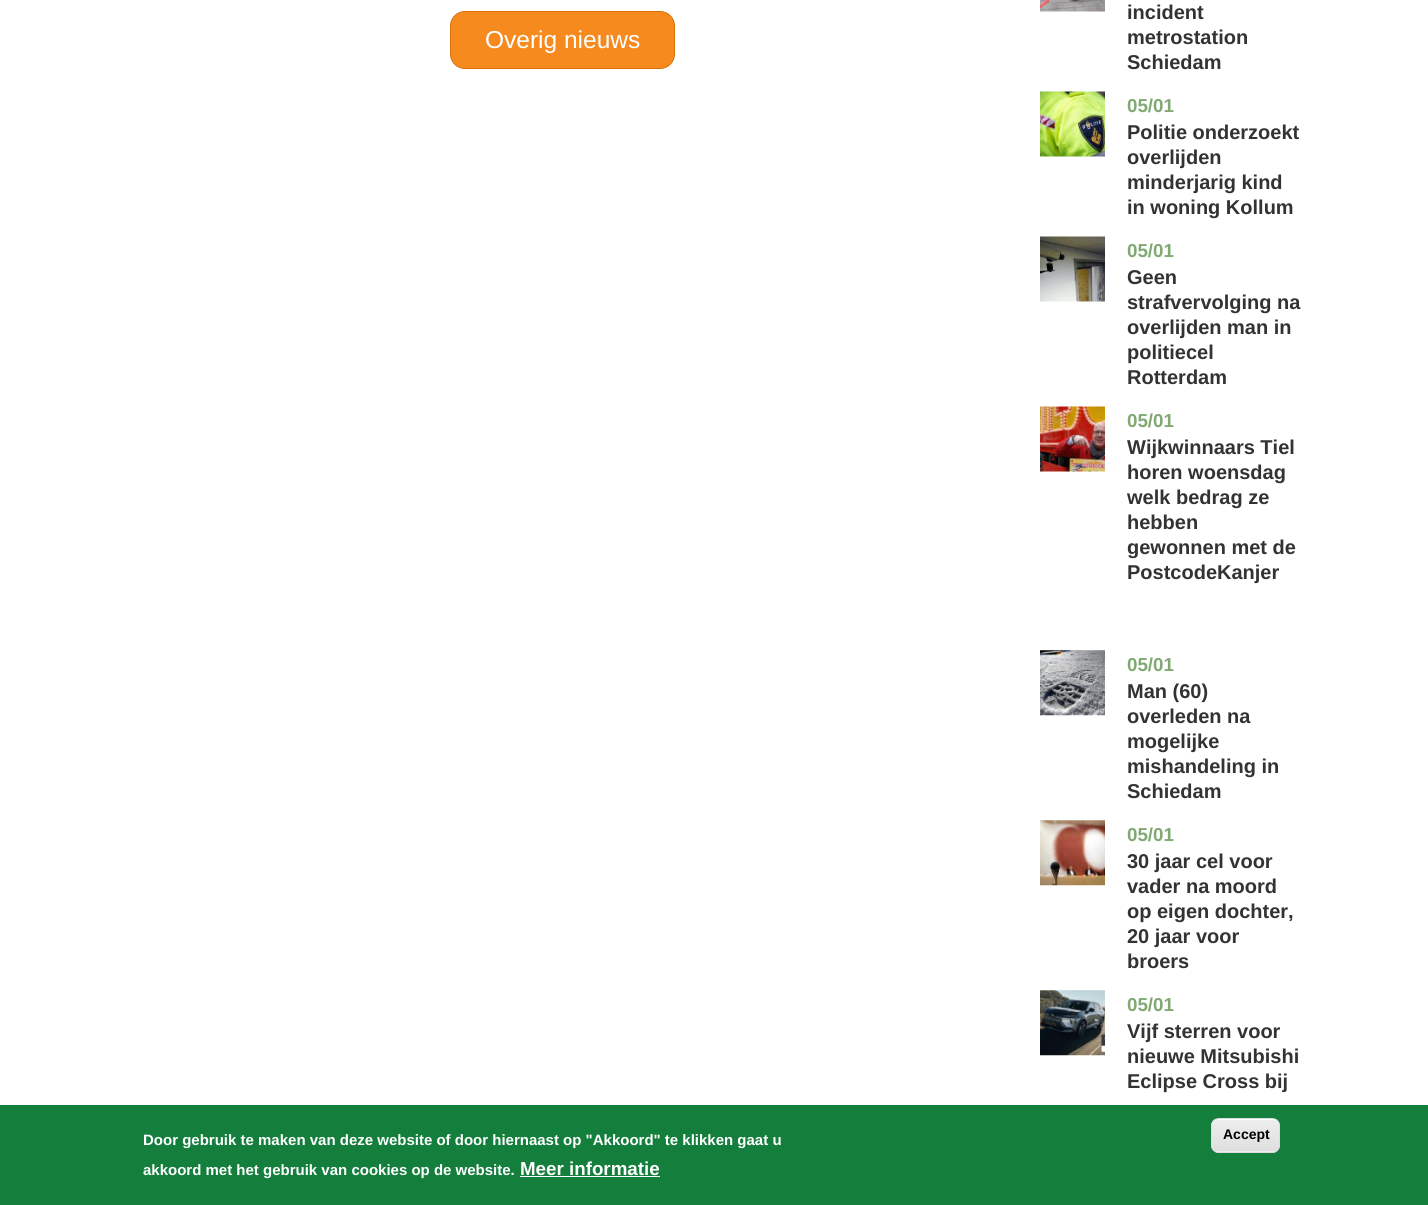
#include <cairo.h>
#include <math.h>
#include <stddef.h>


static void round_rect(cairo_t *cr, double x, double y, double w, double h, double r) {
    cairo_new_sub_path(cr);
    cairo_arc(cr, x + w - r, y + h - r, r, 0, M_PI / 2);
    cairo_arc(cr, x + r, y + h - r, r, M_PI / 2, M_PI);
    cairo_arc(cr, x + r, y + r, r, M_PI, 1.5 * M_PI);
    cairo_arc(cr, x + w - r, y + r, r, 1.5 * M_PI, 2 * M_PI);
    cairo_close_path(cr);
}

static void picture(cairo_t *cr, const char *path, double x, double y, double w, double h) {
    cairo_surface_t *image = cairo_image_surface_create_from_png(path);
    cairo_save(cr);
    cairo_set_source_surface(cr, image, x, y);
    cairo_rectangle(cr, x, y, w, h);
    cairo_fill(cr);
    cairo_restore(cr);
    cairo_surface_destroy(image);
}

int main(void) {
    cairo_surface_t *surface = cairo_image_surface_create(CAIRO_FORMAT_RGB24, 1428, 1205);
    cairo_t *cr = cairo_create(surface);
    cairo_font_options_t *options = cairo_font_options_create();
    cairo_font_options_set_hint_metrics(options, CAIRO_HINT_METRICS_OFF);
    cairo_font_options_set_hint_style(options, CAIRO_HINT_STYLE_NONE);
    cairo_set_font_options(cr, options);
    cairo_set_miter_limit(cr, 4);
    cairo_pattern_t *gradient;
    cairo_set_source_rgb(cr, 1, 1, 1);
    cairo_paint(cr);
    cairo_set_source_rgb(cr, 0.965, 0.541, 0.122);
    round_rect(cr, 450.5, 11.5, 224, 57, 14.5);
    cairo_fill_preserve(cr);
    cairo_set_source_rgb(cr, 0.851, 0.443, 0.035);
    cairo_set_line_width(cr, 1);
    cairo_stroke(cr);
    cairo_select_font_face(cr, "Liberation Sans", CAIRO_FONT_SLANT_NORMAL, CAIRO_FONT_WEIGHT_NORMAL);
    cairo_set_font_size(cr, 24.5);
    cairo_set_source_rgb(cr, 1, 1, 1);
    cairo_move_to(cr, 485, 48);
    cairo_show_text(cr, "Overig nieuws");
    picture(cr, "img1.png", 1040, 0, 65, 12);
    cairo_select_font_face(cr, "Liberation Sans", CAIRO_FONT_SLANT_NORMAL, CAIRO_FONT_WEIGHT_BOLD);
    cairo_set_font_size(cr, 20);
    cairo_set_source_rgb(cr, 0.2, 0.2, 0.2);
    cairo_move_to(cr, 1127, 19);
    cairo_show_text(cr, "incident");
    cairo_move_to(cr, 1127, 44);
    cairo_show_text(cr, "metrostation");
    cairo_move_to(cr, 1127, 69);
    cairo_show_text(cr, "Schiedam");
    picture(cr, "img2.png", 1040, 91, 65, 66);
    cairo_set_font_size(cr, 18.75);
    cairo_set_source_rgb(cr, 0.506, 0.663, 0.455);
    cairo_move_to(cr, 1127, 112);
    cairo_show_text(cr, "05/01");
    cairo_set_font_size(cr, 20);
    cairo_set_source_rgb(cr, 0.2, 0.2, 0.2);
    cairo_move_to(cr, 1127, 139);
    cairo_show_text(cr, "Politie onderzoekt");
    cairo_move_to(cr, 1127, 164);
    cairo_show_text(cr, "overlijden");
    cairo_move_to(cr, 1127, 189);
    cairo_show_text(cr, "minderjarig kind");
    cairo_move_to(cr, 1127, 214);
    cairo_show_text(cr, "in woning Kollum");
    picture(cr, "img3.png", 1040, 236, 65, 66);
    cairo_set_font_size(cr, 18.75);
    cairo_set_source_rgb(cr, 0.506, 0.663, 0.455);
    cairo_move_to(cr, 1127, 257);
    cairo_show_text(cr, "05/01");
    cairo_set_font_size(cr, 20);
    cairo_set_source_rgb(cr, 0.2, 0.2, 0.2);
    cairo_move_to(cr, 1127, 284);
    cairo_show_text(cr, "Geen");
    cairo_move_to(cr, 1127, 309);
    cairo_show_text(cr, "strafvervolging na");
    cairo_move_to(cr, 1127, 334);
    cairo_show_text(cr, "overlijden man in");
    cairo_move_to(cr, 1127, 359);
    cairo_show_text(cr, "politiecel");
    cairo_move_to(cr, 1127, 384);
    cairo_show_text(cr, "Rotterdam");
    picture(cr, "img4.png", 1040, 406, 65, 66);
    cairo_set_font_size(cr, 18.75);
    cairo_set_source_rgb(cr, 0.506, 0.663, 0.455);
    cairo_move_to(cr, 1127, 427);
    cairo_show_text(cr, "05/01");
    cairo_set_font_size(cr, 20);
    cairo_set_source_rgb(cr, 0.2, 0.2, 0.2);
    cairo_move_to(cr, 1127, 454);
    cairo_show_text(cr, "Wijkwinnaars Tiel");
    cairo_move_to(cr, 1127, 479);
    cairo_show_text(cr, "horen woensdag");
    cairo_move_to(cr, 1127, 504);
    cairo_show_text(cr, "welk bedrag ze");
    cairo_move_to(cr, 1127, 529);
    cairo_show_text(cr, "hebben");
    cairo_move_to(cr, 1127, 554);
    cairo_show_text(cr, "gewonnen met de");
    cairo_move_to(cr, 1127, 579);
    cairo_show_text(cr, "PostcodeKanjer");
    picture(cr, "img5.png", 1040, 650, 65, 66);
    cairo_set_font_size(cr, 18.75);
    cairo_set_source_rgb(cr, 0.506, 0.663, 0.455);
    cairo_move_to(cr, 1127, 671);
    cairo_show_text(cr, "05/01");
    cairo_set_font_size(cr, 20);
    cairo_set_source_rgb(cr, 0.2, 0.2, 0.2);
    cairo_move_to(cr, 1127, 698);
    cairo_show_text(cr, "Man (60)");
    cairo_move_to(cr, 1127, 723);
    cairo_show_text(cr, "overleden na");
    cairo_move_to(cr, 1127, 748);
    cairo_show_text(cr, "mogelijke");
    cairo_move_to(cr, 1127, 773);
    cairo_show_text(cr, "mishandeling in");
    cairo_move_to(cr, 1127, 798);
    cairo_show_text(cr, "Schiedam");
    picture(cr, "img6.png", 1040, 820, 65, 66);
    cairo_set_font_size(cr, 18.75);
    cairo_set_source_rgb(cr, 0.506, 0.663, 0.455);
    cairo_move_to(cr, 1127, 841);
    cairo_show_text(cr, "05/01");
    cairo_set_font_size(cr, 20);
    cairo_set_source_rgb(cr, 0.2, 0.2, 0.2);
    cairo_move_to(cr, 1127, 868);
    cairo_show_text(cr, "30 jaar cel voor");
    cairo_move_to(cr, 1127, 893);
    cairo_show_text(cr, "vader na moord");
    cairo_move_to(cr, 1127, 918);
    cairo_show_text(cr, "op eigen dochter,");
    cairo_move_to(cr, 1127, 943);
    cairo_show_text(cr, "20 jaar voor");
    cairo_move_to(cr, 1127, 968);
    cairo_show_text(cr, "broers");
    picture(cr, "img7.png", 1040, 990, 65, 66);
    cairo_set_font_size(cr, 18.75);
    cairo_set_source_rgb(cr, 0.506, 0.663, 0.455);
    cairo_move_to(cr, 1127, 1011);
    cairo_show_text(cr, "05/01");
    cairo_set_font_size(cr, 20);
    cairo_set_source_rgb(cr, 0.2, 0.2, 0.2);
    cairo_move_to(cr, 1127, 1038);
    cairo_show_text(cr, "Vijf sterren voor");
    cairo_move_to(cr, 1127, 1063);
    cairo_show_text(cr, "nieuwe Mitsubishi");
    cairo_move_to(cr, 1127, 1088);
    cairo_show_text(cr, "Eclipse Cross bij");
    cairo_set_source_rgb(cr, 0.082, 0.494, 0.235);
    cairo_rectangle(cr, 0, 1105, 1428, 100);
    cairo_fill(cr);
    cairo_set_font_size(cr, 15);
    cairo_set_source_rgb(cr, 1, 1, 1);
    cairo_move_to(cr, 143, 1145);
    cairo_show_text(cr, "Door gebruik te maken van deze website of door hiernaast op \"Akkoord\" te klikken gaat u");
    cairo_move_to(cr, 143, 1175);
    cairo_show_text(cr, "akkoord met het gebruik van cookies op de website.");
    cairo_set_font_size(cr, 18.75);
    cairo_move_to(cr, 520, 1175);
    cairo_show_text(cr, "Meer informatie");
    cairo_rectangle(cr, 520, 1176, 140, 1);
    cairo_fill(cr);
    cairo_save(cr);
    round_rect(cr, 1211, 1118, 69, 35, 8);
    cairo_clip(cr);
    gradient = cairo_pattern_create_linear(1246, 1119, 1246, 1151);
    cairo_pattern_add_color_stop_rgba(gradient, 0.05, 0.929, 0.929, 0.929, 1);
    cairo_pattern_add_color_stop_rgba(gradient, 1, 0.875, 0.875, 0.875, 1);
    cairo_set_source(cr, gradient);
    cairo_pattern_destroy(gradient);
    cairo_rectangle(cr, 1211, 1119, 69, 32);
    cairo_fill(cr);
    gradient = cairo_pattern_create_linear(1246, 1151, 1246, 1184);
    cairo_pattern_add_color_stop_rgba(gradient, 0.05, 0.929, 0.929, 0.929, 1);
    cairo_pattern_add_color_stop_rgba(gradient, 1, 0.875, 0.875, 0.875, 1);
    cairo_set_source(cr, gradient);
    cairo_pattern_destroy(gradient);
    cairo_rectangle(cr, 1211, 1151, 69, 2);
    cairo_fill(cr);
    cairo_restore(cr);
    cairo_new_path(cr);
    cairo_move_to(cr, 1219, 1120);
    cairo_line_to(cr, 1272, 1120);
    cairo_curve_to(cr, 1276, 1120, 1279, 1123, 1279, 1126);
    cairo_line_to(cr, 1279, 1125);
    cairo_curve_to(cr, 1279, 1122, 1276, 1119, 1273, 1119);
    cairo_line_to(cr, 1219, 1119);
    cairo_curve_to(cr, 1217, 1119, 1215, 1120, 1214, 1122);
    cairo_curve_to(cr, 1215, 1121, 1217, 1120, 1219, 1120);
    cairo_close_path(cr);
    cairo_fill(cr);
    round_rect(cr, 1211.5, 1118.5, 68, 34, 7.5);
    cairo_set_source_rgb(cr, 0.863, 0.863, 0.863);
    cairo_stroke(cr);
    cairo_set_font_size(cr, 14);
    cairo_set_source_rgb(cr, 0, 0, 0);
    cairo_move_to(cr, 1223, 1139);
    cairo_show_text(cr, "Accept");
    cairo_surface_write_to_png(surface, "page.png");
    cairo_font_options_destroy(options);
    cairo_destroy(cr);
    cairo_surface_destroy(surface);
    return 0;
}
